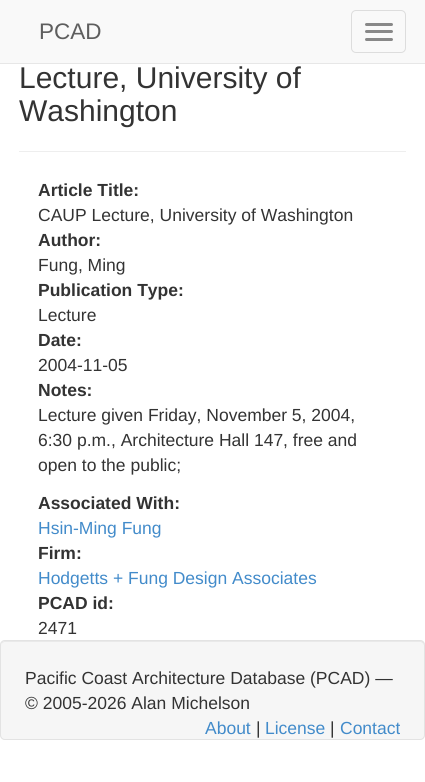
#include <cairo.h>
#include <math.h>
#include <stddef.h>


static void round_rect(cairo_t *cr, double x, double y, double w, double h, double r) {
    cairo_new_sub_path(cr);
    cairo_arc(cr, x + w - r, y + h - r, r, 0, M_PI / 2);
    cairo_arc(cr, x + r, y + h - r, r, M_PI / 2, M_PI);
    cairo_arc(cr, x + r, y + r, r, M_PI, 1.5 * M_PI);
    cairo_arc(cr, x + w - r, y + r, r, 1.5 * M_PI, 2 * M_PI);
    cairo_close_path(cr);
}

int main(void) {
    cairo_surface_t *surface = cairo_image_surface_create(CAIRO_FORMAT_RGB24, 425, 782);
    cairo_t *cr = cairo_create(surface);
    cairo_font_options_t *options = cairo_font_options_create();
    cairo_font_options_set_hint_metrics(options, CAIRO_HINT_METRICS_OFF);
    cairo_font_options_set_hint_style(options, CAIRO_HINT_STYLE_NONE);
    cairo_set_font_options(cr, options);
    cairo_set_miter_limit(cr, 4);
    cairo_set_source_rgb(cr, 1, 1, 1);
    cairo_paint(cr);
    cairo_set_source_rgb(cr, 0.973, 0.973, 0.973);
    cairo_rectangle(cr, 0, 0, 425, 63);
    cairo_fill(cr);
    cairo_set_source_rgb(cr, 0.906, 0.906, 0.906);
    cairo_rectangle(cr, 0, 63, 425, 1);
    cairo_fill(cr);
    cairo_select_font_face(cr, "Liberation Sans", CAIRO_FONT_SLANT_NORMAL, CAIRO_FONT_WEIGHT_NORMAL);
    cairo_set_font_size(cr, 22.5);
    cairo_set_source_rgb(cr, 0.369, 0.369, 0.369);
    cairo_move_to(cr, 39, 39);
    cairo_show_text(cr, "PCAD");
    round_rect(cr, 351.5, 10.5, 54, 42, 4.5);
    cairo_set_source_rgb(cr, 0.867, 0.867, 0.867);
    cairo_set_line_width(cr, 1);
    cairo_stroke(cr);
    cairo_set_source_rgb(cr, 0.533, 0.533, 0.533);
    round_rect(cr, 365, 23, 28, 3, 1.5);
    cairo_fill(cr);
    round_rect(cr, 365, 30, 28, 3, 1.5);
    cairo_fill(cr);
    round_rect(cr, 365, 38, 28, 3, 1.5);
    cairo_fill(cr);
    cairo_set_source_rgb(cr, 0.933, 0.933, 0.933);
    cairo_rectangle(cr, 19, 151, 387, 1);
    cairo_fill(cr);
    cairo_set_font_size(cr, 30);
    cairo_set_source_rgb(cr, 0.2, 0.2, 0.2);
    cairo_move_to(cr, 19, 88);
    cairo_show_text(cr, "Lecture, University of");
    cairo_move_to(cr, 19, 121);
    cairo_show_text(cr, "Washington");
    cairo_select_font_face(cr, "Liberation Sans", CAIRO_FONT_SLANT_NORMAL, CAIRO_FONT_WEIGHT_BOLD);
    cairo_set_font_size(cr, 17.5);
    cairo_move_to(cr, 38, 196);
    cairo_show_text(cr, "Article Title:");
    cairo_select_font_face(cr, "Liberation Sans", CAIRO_FONT_SLANT_NORMAL, CAIRO_FONT_WEIGHT_NORMAL);
    cairo_move_to(cr, 38, 221);
    cairo_show_text(cr, "CAUP Lecture, University of Washington");
    cairo_select_font_face(cr, "Liberation Sans", CAIRO_FONT_SLANT_NORMAL, CAIRO_FONT_WEIGHT_BOLD);
    cairo_move_to(cr, 38, 246);
    cairo_show_text(cr, "Author:");
    cairo_select_font_face(cr, "Liberation Sans", CAIRO_FONT_SLANT_NORMAL, CAIRO_FONT_WEIGHT_NORMAL);
    cairo_move_to(cr, 38, 271);
    cairo_show_text(cr, "Fung, Ming");
    cairo_select_font_face(cr, "Liberation Sans", CAIRO_FONT_SLANT_NORMAL, CAIRO_FONT_WEIGHT_BOLD);
    cairo_move_to(cr, 38, 296);
    cairo_show_text(cr, "Publication Type:");
    cairo_select_font_face(cr, "Liberation Sans", CAIRO_FONT_SLANT_NORMAL, CAIRO_FONT_WEIGHT_NORMAL);
    cairo_move_to(cr, 38, 321);
    cairo_show_text(cr, "Lecture");
    cairo_select_font_face(cr, "Liberation Sans", CAIRO_FONT_SLANT_NORMAL, CAIRO_FONT_WEIGHT_BOLD);
    cairo_move_to(cr, 38, 346);
    cairo_show_text(cr, "Date:");
    cairo_select_font_face(cr, "Liberation Sans", CAIRO_FONT_SLANT_NORMAL, CAIRO_FONT_WEIGHT_NORMAL);
    cairo_move_to(cr, 38, 371);
    cairo_show_text(cr, "2004-11-05");
    cairo_select_font_face(cr, "Liberation Sans", CAIRO_FONT_SLANT_NORMAL, CAIRO_FONT_WEIGHT_BOLD);
    cairo_move_to(cr, 38, 396);
    cairo_show_text(cr, "Notes:");
    cairo_select_font_face(cr, "Liberation Sans", CAIRO_FONT_SLANT_NORMAL, CAIRO_FONT_WEIGHT_NORMAL);
    cairo_move_to(cr, 38, 421);
    cairo_show_text(cr, "Lecture given Friday, November 5, 2004,");
    cairo_move_to(cr, 38, 446);
    cairo_show_text(cr, "6:30 p.m., Architecture Hall 147, free and");
    cairo_move_to(cr, 38, 471);
    cairo_show_text(cr, "open to the public;");
    cairo_select_font_face(cr, "Liberation Sans", CAIRO_FONT_SLANT_NORMAL, CAIRO_FONT_WEIGHT_BOLD);
    cairo_move_to(cr, 38, 509);
    cairo_show_text(cr, "Associated With:");
    cairo_select_font_face(cr, "Liberation Sans", CAIRO_FONT_SLANT_NORMAL, CAIRO_FONT_WEIGHT_NORMAL);
    cairo_set_source_rgb(cr, 0.259, 0.545, 0.792);
    cairo_move_to(cr, 38, 534);
    cairo_show_text(cr, "Hsin-Ming Fung");
    cairo_select_font_face(cr, "Liberation Sans", CAIRO_FONT_SLANT_NORMAL, CAIRO_FONT_WEIGHT_BOLD);
    cairo_set_source_rgb(cr, 0.2, 0.2, 0.2);
    cairo_move_to(cr, 38, 559);
    cairo_show_text(cr, "Firm:");
    cairo_select_font_face(cr, "Liberation Sans", CAIRO_FONT_SLANT_NORMAL, CAIRO_FONT_WEIGHT_NORMAL);
    cairo_set_source_rgb(cr, 0.259, 0.545, 0.792);
    cairo_move_to(cr, 38, 584);
    cairo_show_text(cr, "Hodgetts + Fung Design Associates");
    cairo_select_font_face(cr, "Liberation Sans", CAIRO_FONT_SLANT_NORMAL, CAIRO_FONT_WEIGHT_BOLD);
    cairo_set_source_rgb(cr, 0.2, 0.2, 0.2);
    cairo_move_to(cr, 38, 609);
    cairo_show_text(cr, "PCAD id:");
    cairo_select_font_face(cr, "Liberation Sans", CAIRO_FONT_SLANT_NORMAL, CAIRO_FONT_WEIGHT_NORMAL);
    cairo_move_to(cr, 38, 634);
    cairo_show_text(cr, "2471");
    cairo_set_source_rgb(cr, 0.961, 0.961, 0.961);
    round_rect(cr, 0, 640, 425, 100, 5);
    cairo_fill(cr);
    cairo_set_source_rgb(cr, 0.914, 0.914, 0.914);
    cairo_new_path(cr);
    cairo_move_to(cr, 5, 642);
    cairo_line_to(cr, 420, 642);
    cairo_curve_to(cr, 422, 642, 424, 644, 424, 646);
    cairo_curve_to(cr, 424, 643, 423, 641, 420, 641);
    cairo_line_to(cr, 5, 641);
    cairo_curve_to(cr, 4, 641, 2, 642, 2, 643);
    cairo_line_to(cr, 1, 646);
    cairo_curve_to(cr, 1, 644, 3, 642, 5, 642);
    cairo_close_path(cr);
    cairo_fill(cr);
    round_rect(cr, 0.5, 640.5, 424, 99, 4.5);
    cairo_set_source_rgb(cr, 0.89, 0.89, 0.89);
    cairo_stroke(cr);
    cairo_set_source_rgb(cr, 0.2, 0.2, 0.2);
    cairo_move_to(cr, 25, 684);
    cairo_show_text(cr, "Pacific Coast Architecture Database (PCAD) —");
    cairo_move_to(cr, 25, 709);
    cairo_show_text(cr, "© 2005-2026 Alan Michelson");
    cairo_set_source_rgb(cr, 0.259, 0.545, 0.792);
    cairo_move_to(cr, 205, 734);
    cairo_show_text(cr, "About");
    cairo_set_source_rgb(cr, 0.2, 0.2, 0.2);
    cairo_move_to(cr, 256, 734);
    cairo_show_text(cr, "|");
    cairo_set_source_rgb(cr, 0.259, 0.545, 0.792);
    cairo_move_to(cr, 265, 734);
    cairo_show_text(cr, "License");
    cairo_set_source_rgb(cr, 0.2, 0.2, 0.2);
    cairo_move_to(cr, 330, 734);
    cairo_show_text(cr, "|");
    cairo_set_source_rgb(cr, 0.259, 0.545, 0.792);
    cairo_move_to(cr, 340, 734);
    cairo_show_text(cr, "Contact");
    cairo_surface_write_to_png(surface, "page.png");
    cairo_font_options_destroy(options);
    cairo_destroy(cr);
    cairo_surface_destroy(surface);
    return 0;
}
